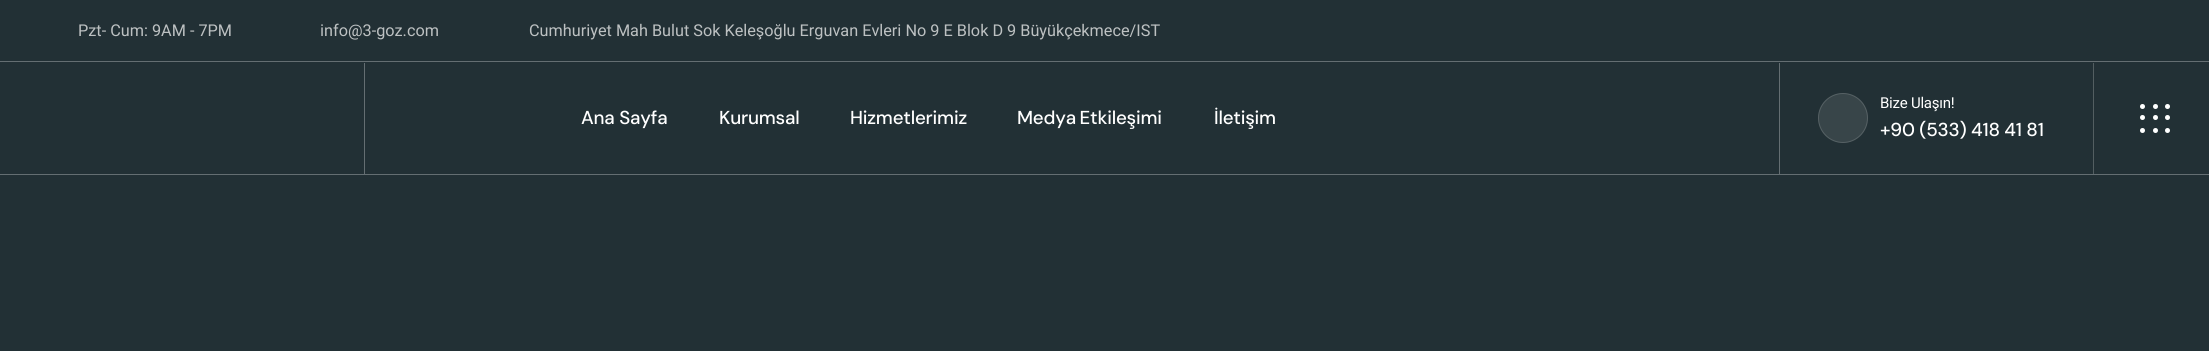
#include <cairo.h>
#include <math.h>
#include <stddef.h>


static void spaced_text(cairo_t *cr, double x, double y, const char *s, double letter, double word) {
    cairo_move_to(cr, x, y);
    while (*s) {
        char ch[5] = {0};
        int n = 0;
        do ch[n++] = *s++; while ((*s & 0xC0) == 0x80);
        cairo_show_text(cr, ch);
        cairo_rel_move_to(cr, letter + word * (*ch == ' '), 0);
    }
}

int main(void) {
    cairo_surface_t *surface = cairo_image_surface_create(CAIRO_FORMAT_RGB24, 2209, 351);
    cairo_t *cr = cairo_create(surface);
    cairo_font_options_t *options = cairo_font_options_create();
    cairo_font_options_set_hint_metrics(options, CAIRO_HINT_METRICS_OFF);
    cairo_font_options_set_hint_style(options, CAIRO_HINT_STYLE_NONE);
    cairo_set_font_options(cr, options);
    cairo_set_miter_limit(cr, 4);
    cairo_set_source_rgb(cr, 0.133, 0.188, 0.208);
    cairo_paint(cr);
    cairo_select_font_face(cr, "Heebo", CAIRO_FONT_SLANT_NORMAL, CAIRO_FONT_WEIGHT_NORMAL);
    cairo_set_font_size(cr, 16.25);
    cairo_set_source_rgb(cr, 0.741, 0.757, 0.761);
    cairo_move_to(cr, 78, 36);
    cairo_show_text(cr, "Pzt- Cum: 9AM - 7PM");
    cairo_move_to(cr, 320, 36);
    cairo_show_text(cr, "info@3-goz.com");
    cairo_move_to(cr, 529, 36);
    cairo_show_text(cr, "Cumhuriyet Mah Bulut Sok Keleşoğlu Erguvan Evleri No 9 E Blok D 9 Büyükçekmece/IST");
    cairo_set_source_rgb(cr, 0.392, 0.431, 0.447);
    cairo_rectangle(cr, 0, 61, 2209, 1);
    cairo_fill(cr);
    cairo_rectangle(cr, 0, 174, 2209, 1);
    cairo_fill(cr);
    cairo_rectangle(cr, 1779, 63, 1, 111);
    cairo_fill(cr);
    cairo_rectangle(cr, 364, 63, 1, 111);
    cairo_fill(cr);
    cairo_select_font_face(cr, "DM Sans Medium", CAIRO_FONT_SLANT_NORMAL, CAIRO_FONT_WEIGHT_NORMAL);
    cairo_set_font_size(cr, 18.75);
    cairo_set_source_rgb(cr, 1, 1, 1);
    spaced_text(cr, 581, 124, "Ana Sayfa", -0.2, 0);
    spaced_text(cr, 719, 124, "Kurumsal", -0.2, 0);
    spaced_text(cr, 850, 124, "Hizmetlerimiz", -0.2, 0);
    spaced_text(cr, 1017, 124, "Medya Etkileşimi", -0.2, -1);
    spaced_text(cr, 1214, 124, "İletişim", -0.2, 0);
    cairo_set_source_rgb(cr, 0.22, 0.271, 0.286);
    cairo_new_path(cr);
    cairo_arc(cr, 1843, 118, 25, 0, 2 * M_PI);
    cairo_fill(cr);
    cairo_arc(cr, 1843, 118, 24.5, 0, 2 * M_PI);
    cairo_set_source_rgba(cr, 1, 1, 1, 0.15);
    cairo_set_line_width(cr, 1);
    cairo_stroke(cr);
    cairo_select_font_face(cr, "Heebo", CAIRO_FONT_SLANT_NORMAL, CAIRO_FONT_WEIGHT_NORMAL);
    cairo_set_font_size(cr, 15);
    cairo_set_source_rgb(cr, 1, 1, 1);
    spaced_text(cr, 1880, 108, "Bize Ulaşın!", -0.25, 0);
    cairo_select_font_face(cr, "DM Sans Medium", CAIRO_FONT_SLANT_NORMAL, CAIRO_FONT_WEIGHT_NORMAL);
    cairo_set_font_size(cr, 18.75);
    spaced_text(cr, 1880, 136, "+90 (533) 418 41 81", -0.2, 0);
    cairo_set_source_rgb(cr, 0.325, 0.369, 0.38);
    cairo_rectangle(cr, 2093, 63, 1, 111);
    cairo_fill(cr);
    cairo_set_source_rgb(cr, 1, 1, 1);
    cairo_arc(cr, 2142.5, 106.5, 2.5, 0, 2 * M_PI);
    cairo_fill(cr);
    cairo_arc(cr, 2155.5, 106.5, 2.5, 0, 2 * M_PI);
    cairo_fill(cr);
    cairo_arc(cr, 2167.5, 106.5, 2.5, 0, 2 * M_PI);
    cairo_fill(cr);
    cairo_arc(cr, 2142.5, 117.5, 2.5, 0, 2 * M_PI);
    cairo_fill(cr);
    cairo_arc(cr, 2155.5, 117.5, 2.5, 0, 2 * M_PI);
    cairo_fill(cr);
    cairo_arc(cr, 2167.5, 117.5, 2.5, 0, 2 * M_PI);
    cairo_fill(cr);
    cairo_arc(cr, 2142.5, 130.5, 2.5, 0, 2 * M_PI);
    cairo_fill(cr);
    cairo_arc(cr, 2155.5, 130.5, 2.5, 0, 2 * M_PI);
    cairo_fill(cr);
    cairo_arc(cr, 2167.5, 130.5, 2.5, 0, 2 * M_PI);
    cairo_fill(cr);
    cairo_surface_write_to_png(surface, "page.png");
    cairo_font_options_destroy(options);
    cairo_destroy(cr);
    cairo_surface_destroy(surface);
    return 0;
}
